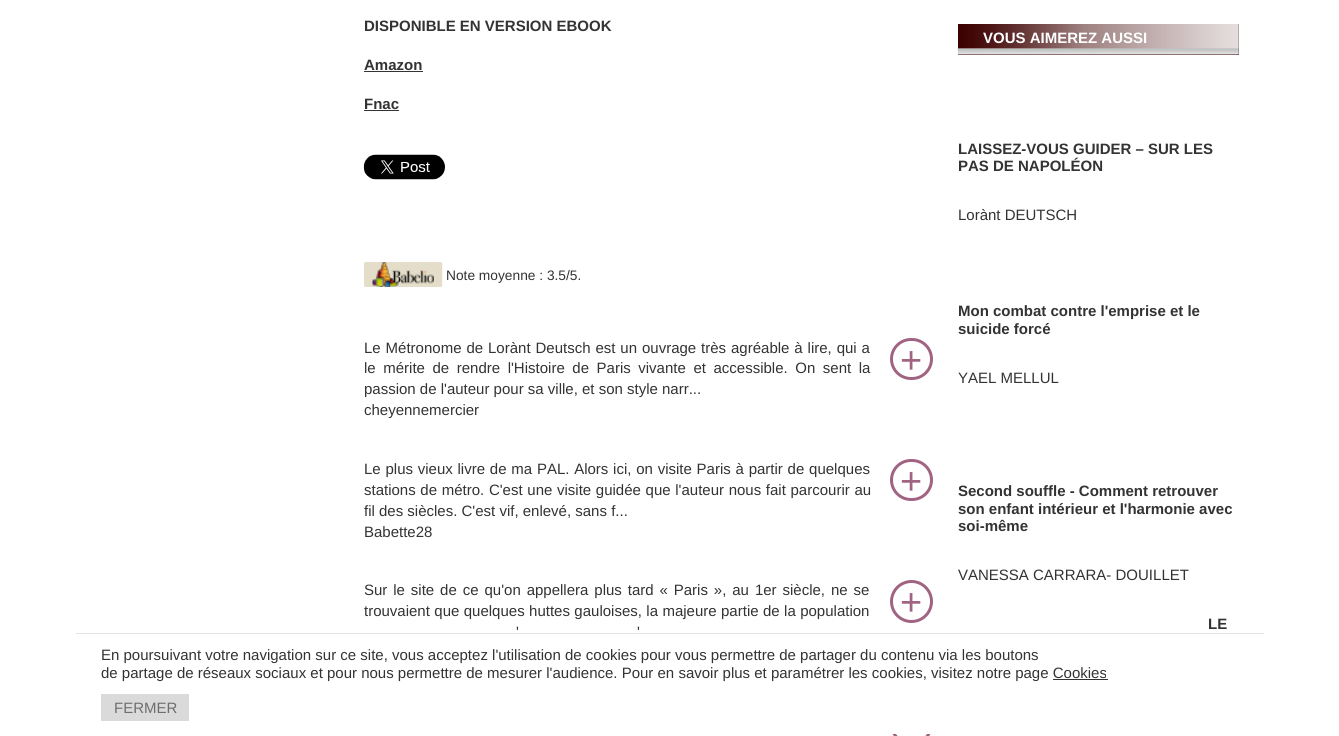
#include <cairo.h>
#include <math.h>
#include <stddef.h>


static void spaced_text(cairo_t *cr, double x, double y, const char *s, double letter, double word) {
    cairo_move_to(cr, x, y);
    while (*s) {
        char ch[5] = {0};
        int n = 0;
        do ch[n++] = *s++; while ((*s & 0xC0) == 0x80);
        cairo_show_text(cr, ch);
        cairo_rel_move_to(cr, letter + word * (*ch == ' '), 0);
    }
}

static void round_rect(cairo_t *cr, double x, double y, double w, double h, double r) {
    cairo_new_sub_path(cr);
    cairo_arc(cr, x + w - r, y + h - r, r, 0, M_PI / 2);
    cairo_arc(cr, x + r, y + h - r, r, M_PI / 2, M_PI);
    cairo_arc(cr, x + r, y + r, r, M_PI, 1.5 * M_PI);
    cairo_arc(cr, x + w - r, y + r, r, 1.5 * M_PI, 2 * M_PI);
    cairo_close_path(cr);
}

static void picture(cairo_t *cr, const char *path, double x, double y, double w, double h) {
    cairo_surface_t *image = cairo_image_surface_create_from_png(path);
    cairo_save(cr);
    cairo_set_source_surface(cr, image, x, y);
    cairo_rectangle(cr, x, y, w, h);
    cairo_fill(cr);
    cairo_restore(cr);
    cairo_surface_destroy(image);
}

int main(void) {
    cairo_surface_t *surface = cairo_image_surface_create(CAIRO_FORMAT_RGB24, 1339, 736);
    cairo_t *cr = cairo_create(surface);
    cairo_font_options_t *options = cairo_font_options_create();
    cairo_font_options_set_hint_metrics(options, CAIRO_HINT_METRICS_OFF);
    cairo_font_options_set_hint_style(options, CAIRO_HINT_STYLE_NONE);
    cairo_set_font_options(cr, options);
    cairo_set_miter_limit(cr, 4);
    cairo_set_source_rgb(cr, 1, 1, 1);
    cairo_paint(cr);
    cairo_select_font_face(cr, "Liberation Sans", CAIRO_FONT_SLANT_NORMAL, CAIRO_FONT_WEIGHT_BOLD);
    cairo_set_font_size(cr, 15);
    cairo_set_source_rgb(cr, 0.2, 0.2, 0.2);
    cairo_move_to(cr, 364, 31);
    cairo_show_text(cr, "DISPONIBLE EN VERSION EBOOK");
    cairo_move_to(cr, 364, 70);
    cairo_show_text(cr, "Amazon");
    cairo_rectangle(cr, 364, 71, 59, 1);
    cairo_fill(cr);
    cairo_move_to(cr, 364, 109);
    cairo_show_text(cr, "Fnac");
    cairo_rectangle(cr, 364, 110, 35, 1);
    cairo_fill(cr);
    picture(cr, "img1.png", 363, 154, 82, 26);
    picture(cr, "img2.png", 364, 262, 79, 25);
    cairo_select_font_face(cr, "Liberation Sans", CAIRO_FONT_SLANT_NORMAL, CAIRO_FONT_WEIGHT_NORMAL);
    cairo_set_font_size(cr, 13.75);
    cairo_move_to(cr, 446, 280);
    cairo_show_text(cr, "Note moyenne : 3.5/5.");
    cairo_set_font_size(cr, 15);
    spaced_text(cr, 364, 353, "Le Métronome de Lorànt Deutsch est un ouvrage très agréable à lire, qui a", 0, 0.75);
    spaced_text(cr, 364, 373, "le mérite de rendre l'Histoire de Paris vivante et accessible. On sent la", 0, 3.4);
    round_rect(cr, 891.5, 339.5, 40, 39, 19.5);
    cairo_set_source_rgb(cr, 0.627, 0.392, 0.51);
    cairo_set_line_width(cr, 3);
    cairo_stroke(cr);
    cairo_set_font_size(cr, 38);
    cairo_move_to(cr, 900, 373);
    cairo_show_text(cr, "+");
    cairo_set_font_size(cr, 15);
    cairo_set_source_rgb(cr, 0.2, 0.2, 0.2);
    cairo_move_to(cr, 364, 394);
    cairo_show_text(cr, "passion de l'auteur pour sa ville, et son style narr...");
    cairo_move_to(cr, 364, 415);
    cairo_show_text(cr, "cheyennemercier");
    spaced_text(cr, 364, 474, "Le plus vieux livre de ma PAL. Alors ici, on visite Paris à partir de quelques", 0, 0.6);
    spaced_text(cr, 364, 495, "stations de métro. C'est une visite guidée que l'auteur nous fait parcourir au", 0, 0.5);
    round_rect(cr, 891.5, 460.5, 40, 39, 19.5);
    cairo_set_source_rgb(cr, 0.627, 0.392, 0.51);
    cairo_stroke(cr);
    cairo_set_font_size(cr, 38);
    cairo_move_to(cr, 900, 494);
    cairo_show_text(cr, "+");
    cairo_set_font_size(cr, 15);
    cairo_set_source_rgb(cr, 0.2, 0.2, 0.2);
    cairo_move_to(cr, 364, 516);
    cairo_show_text(cr, "fil des siècles. C'est vif, enlevé, sans f...");
    cairo_move_to(cr, 364, 537);
    cairo_show_text(cr, "Babette28");
    spaced_text(cr, 364, 595, "Sur le site de ce qu'on appellera plus tard « Paris », au 1er siècle, ne se", 0, 1.75);
    spaced_text(cr, 364, 616, "trouvaient que quelques huttes gauloises, la majeure partie de la population", 0, 0.25);
    cairo_new_path(cr);
    cairo_arc(cr, 911.5, 601.5, 20, 0, 2 * M_PI);
    cairo_set_source_rgb(cr, 0.627, 0.392, 0.51);
    cairo_stroke(cr);
    cairo_set_font_size(cr, 38);
    cairo_move_to(cr, 900, 615);
    cairo_show_text(cr, "+");
    cairo_set_font_size(cr, 15);
    cairo_set_source_rgb(cr, 0.2, 0.2, 0.2);
    cairo_move_to(cr, 516, 637);
    cairo_show_text(cr, "'");
    cairo_move_to(cr, 637, 637);
    cairo_show_text(cr, "'");
    round_rect(cr, 891.5, 704.5, 40, 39, 19.5);
    cairo_set_source_rgb(cr, 0.627, 0.392, 0.51);
    cairo_stroke(cr);
    cairo_set_source_rgb(cr, 0.235, 0, 0);
    cairo_rectangle(cr, 958, 24, 281, 31);
    cairo_fill(cr);
    picture(cr, "img3.png", 957, 24, 282, 31);
    cairo_select_font_face(cr, "Liberation Sans", CAIRO_FONT_SLANT_NORMAL, CAIRO_FONT_WEIGHT_BOLD);
    cairo_set_source_rgb(cr, 1, 1, 1);
    cairo_move_to(cr, 983, 43);
    cairo_show_text(cr, "VOUS AIMEREZ AUSSI");
    cairo_set_source_rgb(cr, 0.2, 0.2, 0.2);
    cairo_move_to(cr, 958, 154);
    cairo_show_text(cr, "LAISSEZ-VOUS GUIDER – SUR LES");
    cairo_move_to(cr, 958, 171);
    cairo_show_text(cr, "PAS DE NAPOLÉON");
    cairo_select_font_face(cr, "Liberation Sans", CAIRO_FONT_SLANT_NORMAL, CAIRO_FONT_WEIGHT_NORMAL);
    cairo_move_to(cr, 958, 220);
    cairo_show_text(cr, "Lorànt DEUTSCH");
    cairo_select_font_face(cr, "Liberation Sans", CAIRO_FONT_SLANT_NORMAL, CAIRO_FONT_WEIGHT_BOLD);
    cairo_move_to(cr, 958, 316);
    cairo_show_text(cr, "Mon combat contre l'emprise et le");
    cairo_move_to(cr, 958, 334);
    cairo_show_text(cr, "suicide forcé");
    cairo_select_font_face(cr, "Liberation Sans", CAIRO_FONT_SLANT_NORMAL, CAIRO_FONT_WEIGHT_NORMAL);
    cairo_move_to(cr, 958, 383);
    cairo_show_text(cr, "YAEL MELLUL");
    cairo_select_font_face(cr, "Liberation Sans", CAIRO_FONT_SLANT_NORMAL, CAIRO_FONT_WEIGHT_BOLD);
    cairo_move_to(cr, 958, 496);
    cairo_show_text(cr, "Second souffle - Comment retrouver");
    cairo_move_to(cr, 958, 514);
    cairo_show_text(cr, "son enfant intérieur et l'harmonie avec");
    cairo_move_to(cr, 958, 531);
    cairo_show_text(cr, "soi-même");
    cairo_select_font_face(cr, "Liberation Sans", CAIRO_FONT_SLANT_NORMAL, CAIRO_FONT_WEIGHT_NORMAL);
    cairo_move_to(cr, 958, 580);
    cairo_show_text(cr, "VANESSA CARRARA- DOUILLET");
    cairo_select_font_face(cr, "Liberation Sans", CAIRO_FONT_SLANT_NORMAL, CAIRO_FONT_WEIGHT_BOLD);
    cairo_move_to(cr, 1208, 629);
    cairo_show_text(cr, "LE");
    cairo_set_source_rgb(cr, 1, 1, 1);
    cairo_rectangle(cr, 890, 703, 43, 31);
    cairo_fill(cr);
    cairo_set_source_rgb(cr, 0.898, 0.898, 0.898);
    cairo_rectangle(cr, 76, 633, 1188, 1);
    cairo_fill(cr);
    cairo_select_font_face(cr, "Liberation Sans", CAIRO_FONT_SLANT_NORMAL, CAIRO_FONT_WEIGHT_NORMAL);
    cairo_set_source_rgb(cr, 0.2, 0.2, 0.2);
    cairo_move_to(cr, 101, 660);
    cairo_show_text(cr, "En poursuivant votre navigation sur ce site, vous acceptez l'utilisation de cookies pour vous permettre de partager du contenu via les boutons");
    cairo_move_to(cr, 101, 678);
    cairo_show_text(cr, "de partage de réseaux sociaux et pour nous permettre de mesurer l'audience. Pour en savoir plus et paramétrer les cookies, visitez notre page Cookies");
    cairo_rectangle(cr, 1053, 679, 55, 1);
    cairo_fill(cr);
    cairo_set_source_rgb(cr, 0.855, 0.855, 0.855);
    cairo_rectangle(cr, 101, 694, 88, 27);
    cairo_fill(cr);
    cairo_set_source_rgb(cr, 0.435, 0.427, 0.431);
    cairo_move_to(cr, 114, 713);
    cairo_show_text(cr, "FERMER");
    cairo_surface_write_to_png(surface, "page.png");
    cairo_font_options_destroy(options);
    cairo_destroy(cr);
    cairo_surface_destroy(surface);
    return 0;
}
